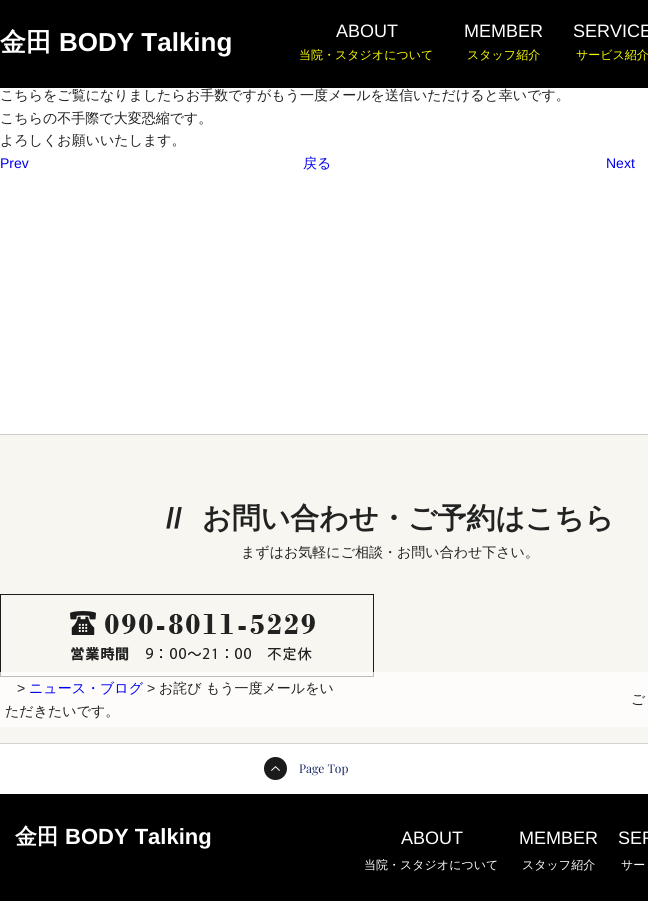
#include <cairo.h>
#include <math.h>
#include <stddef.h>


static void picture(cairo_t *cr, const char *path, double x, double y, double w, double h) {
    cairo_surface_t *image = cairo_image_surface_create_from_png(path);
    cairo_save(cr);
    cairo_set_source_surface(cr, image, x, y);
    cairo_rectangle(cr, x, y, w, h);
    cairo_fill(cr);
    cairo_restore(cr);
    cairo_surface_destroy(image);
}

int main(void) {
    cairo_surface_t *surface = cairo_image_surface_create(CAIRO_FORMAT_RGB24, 648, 901);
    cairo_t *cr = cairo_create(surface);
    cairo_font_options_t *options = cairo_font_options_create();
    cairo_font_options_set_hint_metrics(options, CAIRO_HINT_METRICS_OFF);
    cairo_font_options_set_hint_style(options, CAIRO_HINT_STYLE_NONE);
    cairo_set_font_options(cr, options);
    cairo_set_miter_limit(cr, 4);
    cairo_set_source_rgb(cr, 1, 1, 1);
    cairo_paint(cr);
    cairo_set_source_rgb(cr, 0, 0, 0);
    cairo_rectangle(cr, 0, 0, 648, 88);
    cairo_fill(cr);
    cairo_select_font_face(cr, "WenQuanYi Zen Hei", CAIRO_FONT_SLANT_NORMAL, CAIRO_FONT_WEIGHT_BOLD);
    cairo_set_font_size(cr, 26);
    cairo_set_source_rgb(cr, 1, 1, 1);
    cairo_move_to(cr, 0, 51);
    cairo_show_text(cr, "金田");
    cairo_select_font_face(cr, "Liberation Sans", CAIRO_FONT_SLANT_NORMAL, CAIRO_FONT_WEIGHT_BOLD);
    cairo_move_to(cr, 59, 51);
    cairo_show_text(cr, "BODY Talking");
    cairo_select_font_face(cr, "Liberation Sans", CAIRO_FONT_SLANT_NORMAL, CAIRO_FONT_WEIGHT_NORMAL);
    cairo_set_font_size(cr, 18);
    cairo_move_to(cr, 336, 37);
    cairo_show_text(cr, "ABOUT");
    cairo_select_font_face(cr, "WenQuanYi Zen Hei Medium", CAIRO_FONT_SLANT_NORMAL, CAIRO_FONT_WEIGHT_NORMAL);
    cairo_set_font_size(cr, 12);
    cairo_set_source_rgb(cr, 0.988, 1, 0);
    cairo_move_to(cr, 299, 59);
    cairo_show_text(cr, "当院・スタジオについて");
    cairo_select_font_face(cr, "Liberation Sans", CAIRO_FONT_SLANT_NORMAL, CAIRO_FONT_WEIGHT_NORMAL);
    cairo_set_font_size(cr, 18);
    cairo_set_source_rgb(cr, 1, 1, 1);
    cairo_move_to(cr, 464, 37);
    cairo_show_text(cr, "MEMBER");
    cairo_select_font_face(cr, "WenQuanYi Zen Hei Medium", CAIRO_FONT_SLANT_NORMAL, CAIRO_FONT_WEIGHT_NORMAL);
    cairo_set_font_size(cr, 12);
    cairo_set_source_rgb(cr, 0.988, 1, 0);
    cairo_move_to(cr, 467, 59);
    cairo_show_text(cr, "スタッフ紹介");
    cairo_select_font_face(cr, "Liberation Sans", CAIRO_FONT_SLANT_NORMAL, CAIRO_FONT_WEIGHT_NORMAL);
    cairo_set_font_size(cr, 18);
    cairo_set_source_rgb(cr, 1, 1, 1);
    cairo_move_to(cr, 573, 37);
    cairo_show_text(cr, "SERVICE");
    cairo_select_font_face(cr, "WenQuanYi Zen Hei Medium", CAIRO_FONT_SLANT_NORMAL, CAIRO_FONT_WEIGHT_NORMAL);
    cairo_set_font_size(cr, 12);
    cairo_set_source_rgb(cr, 0.988, 1, 0);
    cairo_move_to(cr, 576, 59);
    cairo_show_text(cr, "サービス紹介");
    cairo_set_font_size(cr, 14);
    cairo_set_source_rgb(cr, 0.133, 0.133, 0.133);
    cairo_move_to(cr, 0, 100);
    cairo_show_text(cr, "こちらをご覧になりましたらお手数ですがもう一度メールを送信いただけると幸いです。");
    cairo_move_to(cr, 0, 123);
    cairo_show_text(cr, "こちらの不手際で大変恐縮です。");
    cairo_move_to(cr, 0, 145);
    cairo_show_text(cr, "よろしくお願いいたします。");
    cairo_select_font_face(cr, "Liberation Sans", CAIRO_FONT_SLANT_NORMAL, CAIRO_FONT_WEIGHT_NORMAL);
    cairo_set_source_rgb(cr, 0, 0, 0.933);
    cairo_move_to(cr, 0, 168);
    cairo_show_text(cr, "Prev");
    cairo_select_font_face(cr, "WenQuanYi Zen Hei Medium", CAIRO_FONT_SLANT_NORMAL, CAIRO_FONT_WEIGHT_NORMAL);
    cairo_move_to(cr, 303, 168);
    cairo_show_text(cr, "戻る");
    cairo_select_font_face(cr, "Liberation Sans", CAIRO_FONT_SLANT_NORMAL, CAIRO_FONT_WEIGHT_NORMAL);
    cairo_move_to(cr, 606, 168);
    cairo_show_text(cr, "Next");
    cairo_set_source_rgb(cr, 0.965, 0.961, 0.941);
    cairo_rectangle(cr, 0, 435, 648, 308);
    cairo_fill(cr);
    picture(cr, "img1.png", 0, 594, 374, 83);
    cairo_set_source_rgba(cr, 1, 1, 1, 0.7);
    cairo_rectangle(cr, 0, 672, 648, 55);
    cairo_fill(cr);
    cairo_set_source_rgb(cr, 0.133, 0.133, 0.133);
    cairo_move_to(cr, 17, 693);
    cairo_show_text(cr, ">");
    cairo_select_font_face(cr, "WenQuanYi Zen Hei Medium", CAIRO_FONT_SLANT_NORMAL, CAIRO_FONT_WEIGHT_NORMAL);
    cairo_set_source_rgb(cr, 0, 0, 0.933);
    cairo_move_to(cr, 29, 693);
    cairo_show_text(cr, "ニュース・ブログ");
    cairo_select_font_face(cr, "Liberation Sans", CAIRO_FONT_SLANT_NORMAL, CAIRO_FONT_WEIGHT_NORMAL);
    cairo_set_source_rgb(cr, 0.133, 0.133, 0.133);
    cairo_move_to(cr, 147, 693);
    cairo_show_text(cr, ">");
    cairo_select_font_face(cr, "WenQuanYi Zen Hei Medium", CAIRO_FONT_SLANT_NORMAL, CAIRO_FONT_WEIGHT_NORMAL);
    cairo_move_to(cr, 159, 693);
    cairo_show_text(cr, "お詫び もう一度メールをい");
    cairo_move_to(cr, 5, 716);
    cairo_show_text(cr, "ただきたいです。");
    cairo_move_to(cr, 631, 704);
    cairo_show_text(cr, "ご");
    cairo_set_source_rgb(cr, 0.8, 0.8, 0.8);
    cairo_rectangle(cr, 0, 434, 648, 1);
    cairo_fill(cr);
    cairo_select_font_face(cr, "Liberation Sans", CAIRO_FONT_SLANT_NORMAL, CAIRO_FONT_WEIGHT_BOLD);
    cairo_set_font_size(cr, 29);
    cairo_set_source_rgb(cr, 0.133, 0.133, 0.133);
    cairo_move_to(cr, 166, 528);
    cairo_show_text(cr, "//");
    cairo_select_font_face(cr, "WenQuanYi Zen Hei", CAIRO_FONT_SLANT_NORMAL, CAIRO_FONT_WEIGHT_BOLD);
    cairo_move_to(cr, 202, 528);
    cairo_show_text(cr, "お問い合わせ・ご予約はこちら");
    cairo_select_font_face(cr, "WenQuanYi Zen Hei Medium", CAIRO_FONT_SLANT_NORMAL, CAIRO_FONT_WEIGHT_NORMAL);
    cairo_set_font_size(cr, 14);
    cairo_move_to(cr, 241, 557);
    cairo_show_text(cr, "まずはお気軽にご相談・お問い合わせ下さい。");
    cairo_set_source_rgb(cr, 0.824, 0.824, 0.824);
    cairo_rectangle(cr, 0, 743, 648, 1);
    cairo_fill(cr);
    picture(cr, "img2.png", 264, 757, 23, 23);
    cairo_select_font_face(cr, "Playfair Display", CAIRO_FONT_SLANT_NORMAL, CAIRO_FONT_WEIGHT_NORMAL);
    cairo_set_font_size(cr, 12);
    cairo_set_source_rgb(cr, 0.063, 0.145, 0.388);
    cairo_move_to(cr, 299, 773);
    cairo_show_text(cr, "Page Top");
    cairo_set_source_rgb(cr, 0, 0, 0);
    cairo_rectangle(cr, 0, 794, 648, 107);
    cairo_fill(cr);
    cairo_select_font_face(cr, "WenQuanYi Zen Hei", CAIRO_FONT_SLANT_NORMAL, CAIRO_FONT_WEIGHT_BOLD);
    cairo_set_font_size(cr, 22);
    cairo_set_source_rgb(cr, 1, 1, 1);
    cairo_move_to(cr, 15, 844);
    cairo_show_text(cr, "金田");
    cairo_select_font_face(cr, "Liberation Sans", CAIRO_FONT_SLANT_NORMAL, CAIRO_FONT_WEIGHT_BOLD);
    cairo_move_to(cr, 65, 844);
    cairo_show_text(cr, "BODY Talking");
    cairo_select_font_face(cr, "Liberation Sans", CAIRO_FONT_SLANT_NORMAL, CAIRO_FONT_WEIGHT_NORMAL);
    cairo_set_font_size(cr, 18);
    cairo_move_to(cr, 401, 844);
    cairo_show_text(cr, "ABOUT");
    cairo_select_font_face(cr, "WenQuanYi Zen Hei Medium", CAIRO_FONT_SLANT_NORMAL, CAIRO_FONT_WEIGHT_NORMAL);
    cairo_set_font_size(cr, 12);
    cairo_move_to(cr, 364, 869);
    cairo_show_text(cr, "当院・スタジオについて");
    cairo_select_font_face(cr, "Liberation Sans", CAIRO_FONT_SLANT_NORMAL, CAIRO_FONT_WEIGHT_NORMAL);
    cairo_set_font_size(cr, 18);
    cairo_move_to(cr, 519, 844);
    cairo_show_text(cr, "MEMBER");
    cairo_select_font_face(cr, "WenQuanYi Zen Hei Medium", CAIRO_FONT_SLANT_NORMAL, CAIRO_FONT_WEIGHT_NORMAL);
    cairo_set_font_size(cr, 12);
    cairo_move_to(cr, 522, 869);
    cairo_show_text(cr, "スタッフ紹介");
    cairo_select_font_face(cr, "Liberation Sans", CAIRO_FONT_SLANT_NORMAL, CAIRO_FONT_WEIGHT_NORMAL);
    cairo_set_font_size(cr, 18);
    cairo_move_to(cr, 618, 844);
    cairo_show_text(cr, "SER");
    cairo_select_font_face(cr, "WenQuanYi Zen Hei Medium", CAIRO_FONT_SLANT_NORMAL, CAIRO_FONT_WEIGHT_NORMAL);
    cairo_set_font_size(cr, 12);
    cairo_move_to(cr, 621, 869);
    cairo_show_text(cr, "サー");
    cairo_surface_write_to_png(surface, "page.png");
    cairo_font_options_destroy(options);
    cairo_destroy(cr);
    cairo_surface_destroy(surface);
    return 0;
}
